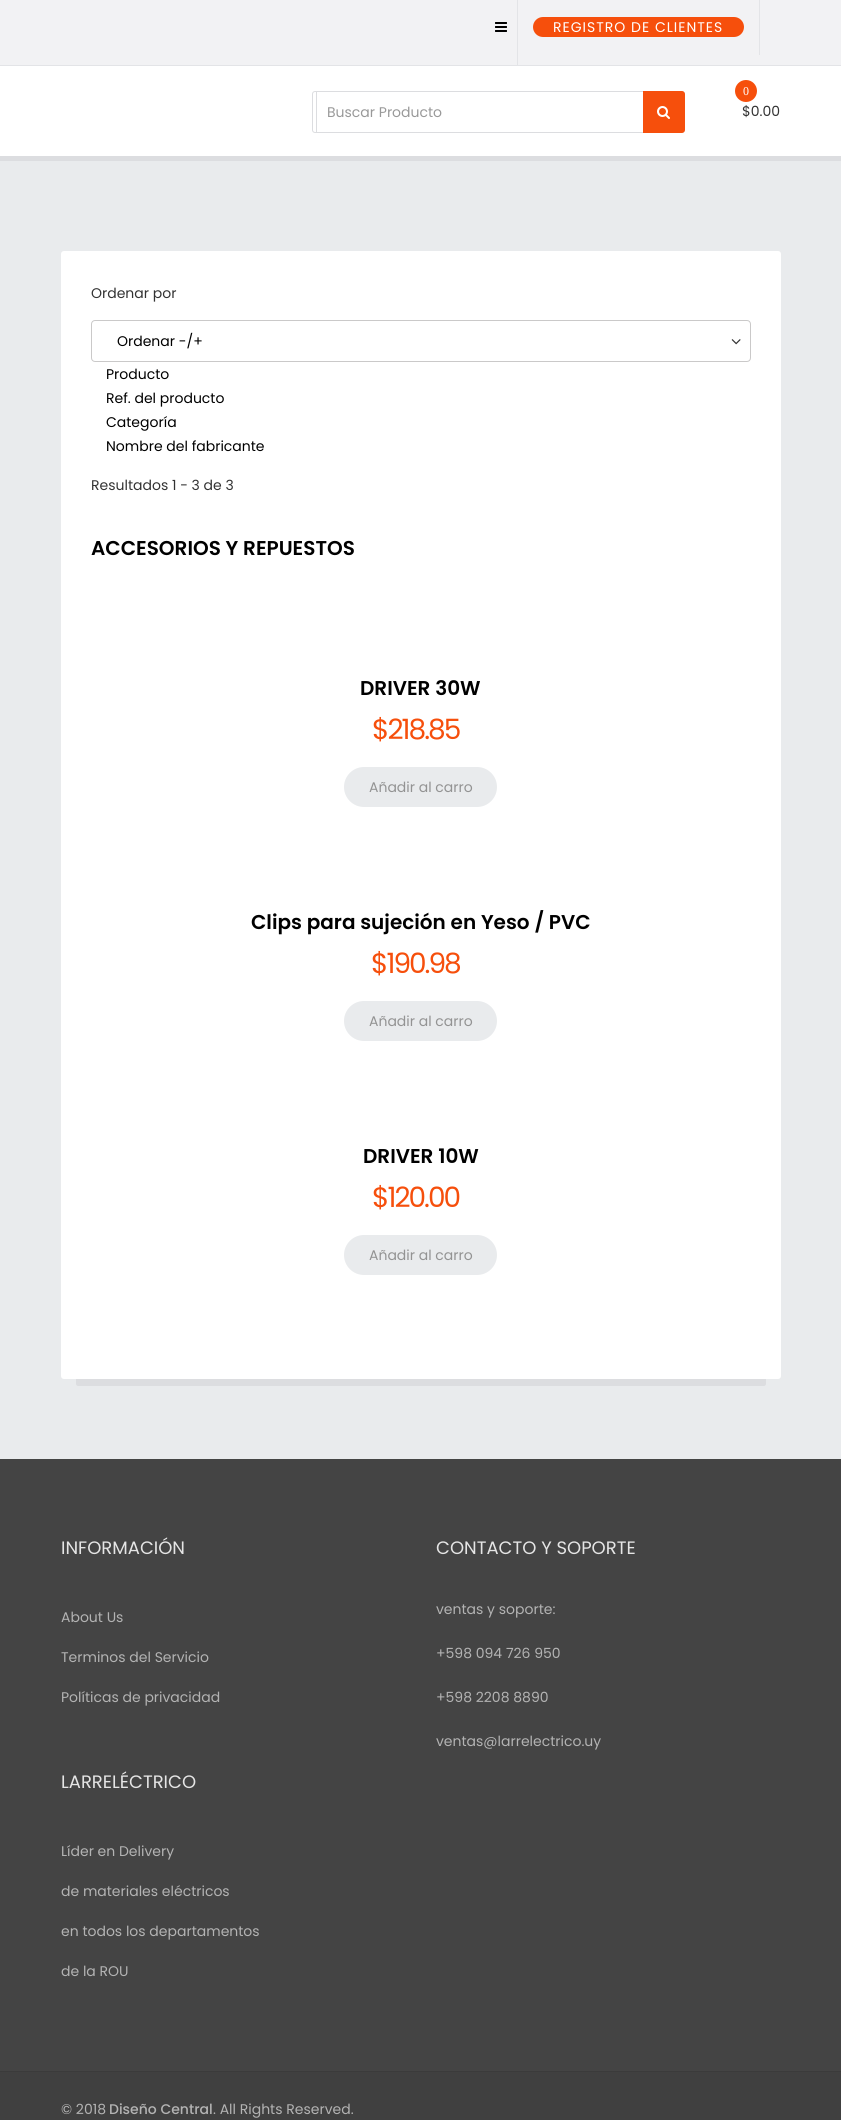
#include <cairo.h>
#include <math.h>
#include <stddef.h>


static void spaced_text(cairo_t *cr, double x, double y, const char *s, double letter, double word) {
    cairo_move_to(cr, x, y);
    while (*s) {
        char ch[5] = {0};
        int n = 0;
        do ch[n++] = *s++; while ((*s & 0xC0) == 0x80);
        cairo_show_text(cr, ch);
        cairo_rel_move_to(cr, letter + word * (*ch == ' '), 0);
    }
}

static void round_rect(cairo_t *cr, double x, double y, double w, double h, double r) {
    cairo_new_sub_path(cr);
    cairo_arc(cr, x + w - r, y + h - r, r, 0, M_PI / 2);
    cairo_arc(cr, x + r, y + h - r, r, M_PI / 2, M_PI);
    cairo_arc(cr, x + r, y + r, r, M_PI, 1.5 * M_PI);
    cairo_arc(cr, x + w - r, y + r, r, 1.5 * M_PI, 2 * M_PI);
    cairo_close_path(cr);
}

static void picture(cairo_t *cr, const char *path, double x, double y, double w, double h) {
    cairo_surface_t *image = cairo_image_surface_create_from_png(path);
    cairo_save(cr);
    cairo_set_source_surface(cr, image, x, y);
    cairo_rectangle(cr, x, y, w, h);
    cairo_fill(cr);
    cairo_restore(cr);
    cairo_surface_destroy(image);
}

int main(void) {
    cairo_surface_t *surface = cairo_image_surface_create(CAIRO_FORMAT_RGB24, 841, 2120);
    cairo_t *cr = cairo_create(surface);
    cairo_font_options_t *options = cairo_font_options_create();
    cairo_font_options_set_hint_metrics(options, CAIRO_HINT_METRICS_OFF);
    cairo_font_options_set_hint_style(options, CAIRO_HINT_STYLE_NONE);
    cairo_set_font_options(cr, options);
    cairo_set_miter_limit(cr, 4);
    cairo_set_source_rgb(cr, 0.914, 0.918, 0.929);
    cairo_paint(cr);
    cairo_set_source_rgb(cr, 0.949, 0.949, 0.957);
    cairo_rectangle(cr, 0, 0, 841, 65);
    cairo_fill(cr);
    cairo_set_source_rgb(cr, 0.89, 0.894, 0.906);
    cairo_rectangle(cr, 0, 65, 841, 1);
    cairo_fill(cr);
    picture(cr, "img1.png", 495, 22, 12, 10);
    cairo_rectangle(cr, 517, 0, 1, 65);
    cairo_fill(cr);
    cairo_set_source_rgb(cr, 0.961, 0.31, 0.047);
    round_rect(cr, 533, 17, 211, 20, 10);
    cairo_fill(cr);
    cairo_select_font_face(cr, "Poppins", CAIRO_FONT_SLANT_NORMAL, CAIRO_FONT_WEIGHT_NORMAL);
    cairo_set_font_size(cr, 14);
    cairo_set_source_rgb(cr, 1, 1, 1);
    spaced_text(cr, 553, 32, "REGISTRO DE CLIENTES", 1, 0);
    cairo_set_source_rgb(cr, 0.89, 0.894, 0.906);
    cairo_rectangle(cr, 759, 0, 1, 55);
    cairo_fill(cr);
    cairo_set_source_rgb(cr, 1, 1, 1);
    cairo_rectangle(cr, 0, 66, 841, 90);
    cairo_fill(cr);
    cairo_set_source_rgb(cr, 0.863, 0.867, 0.878);
    cairo_rectangle(cr, 0, 156, 841, 5);
    cairo_fill(cr);
    round_rect(cr, 312.5, 91.5, 372, 41, 2.5);
    cairo_set_line_width(cr, 1);
    cairo_stroke(cr);
    cairo_rectangle(cr, 316, 92, 1, 40);
    cairo_fill(cr);
    cairo_set_source_rgb(cr, 0.6, 0.6, 0.6);
    cairo_move_to(cr, 327, 117);
    cairo_show_text(cr, "Buscar Producto");
    cairo_set_source_rgb(cr, 0.961, 0.31, 0.047);
    cairo_new_path(cr);
    cairo_move_to(cr, 643, 91);
    cairo_line_to(cr, 682, 91);
    cairo_curve_to(cr, 683.5, 91, 685, 92.5, 685, 94);
    cairo_line_to(cr, 685, 130);
    cairo_curve_to(cr, 685, 131.5, 683.5, 133, 682, 133);
    cairo_line_to(cr, 643, 133);
    cairo_close_path(cr);
    cairo_fill(cr);
    picture(cr, "img2.png", 657, 106, 13, 13);
    cairo_arc(cr, 746, 91, 11, 0, 2 * M_PI);
    cairo_fill(cr);
    cairo_select_font_face(cr, "Liberation Serif", CAIRO_FONT_SLANT_NORMAL, CAIRO_FONT_WEIGHT_NORMAL);
    cairo_set_font_size(cr, 12);
    cairo_set_source_rgb(cr, 1, 1, 1);
    cairo_move_to(cr, 743, 95);
    cairo_show_text(cr, "0");
    cairo_select_font_face(cr, "Poppins", CAIRO_FONT_SLANT_NORMAL, CAIRO_FONT_WEIGHT_NORMAL);
    cairo_set_font_size(cr, 14);
    cairo_set_source_rgb(cr, 0.2, 0.2, 0.2);
    cairo_move_to(cr, 742, 116);
    cairo_show_text(cr, "$0.00");
    cairo_set_source_rgb(cr, 1, 1, 1);
    round_rect(cr, 61, 251, 720, 1128, 3);
    cairo_fill(cr);
    cairo_set_source_rgb(cr, 0.2, 0.2, 0.2);
    cairo_move_to(cr, 91, 298);
    cairo_show_text(cr, "Ordenar por");
    round_rect(cr, 91.5, 320.5, 659, 41, 3.5);
    cairo_set_source_rgb(cr, 0.792, 0.788, 0.788);
    cairo_stroke(cr);
    cairo_set_source_rgb(cr, 0, 0, 0);
    cairo_move_to(cr, 117, 346);
    cairo_show_text(cr, "Ordenar -/+");
    picture(cr, "img3.png", 731, 339, 10, 6);
    cairo_move_to(cr, 106, 379);
    cairo_show_text(cr, "Producto");
    cairo_move_to(cr, 106, 403);
    cairo_show_text(cr, "Ref. del producto");
    cairo_move_to(cr, 106, 427);
    cairo_show_text(cr, "Categoría");
    cairo_move_to(cr, 106, 451);
    cairo_show_text(cr, "Nombre del fabricante");
    cairo_set_source_rgb(cr, 0.2, 0.2, 0.2);
    cairo_move_to(cr, 91, 490);
    cairo_show_text(cr, "Resultados 1 - 3 de 3");
    cairo_select_font_face(cr, "Poppins SemiBold", CAIRO_FONT_SLANT_NORMAL, CAIRO_FONT_WEIGHT_NORMAL);
    cairo_set_font_size(cr, 20);
    cairo_set_source_rgb(cr, 0, 0, 0);
    cairo_move_to(cr, 91, 555);
    cairo_show_text(cr, "ACCESORIOS Y REPUESTOS");
    cairo_move_to(cr, 360, 695);
    cairo_show_text(cr, "DRIVER 30W");
    cairo_select_font_face(cr, "Poppins", CAIRO_FONT_SLANT_NORMAL, CAIRO_FONT_WEIGHT_NORMAL);
    cairo_set_font_size(cr, 28);
    cairo_set_source_rgb(cr, 0.961, 0.31, 0.047);
    spaced_text(cr, 372, 739, "$218.85", -2, 0);
    cairo_set_source_rgb(cr, 0.914, 0.918, 0.929);
    round_rect(cr, 344, 767, 153, 40, 20);
    cairo_fill(cr);
    cairo_set_font_size(cr, 14);
    cairo_set_source_rgb(cr, 0.576, 0.576, 0.576);
    cairo_move_to(cr, 369, 792);
    cairo_show_text(cr, "Añadir al carro");
    cairo_select_font_face(cr, "Poppins SemiBold", CAIRO_FONT_SLANT_NORMAL, CAIRO_FONT_WEIGHT_NORMAL);
    cairo_set_font_size(cr, 20);
    cairo_set_source_rgb(cr, 0, 0, 0);
    cairo_move_to(cr, 251, 929);
    cairo_show_text(cr, "Clips para sujeción en Yeso / PVC");
    cairo_select_font_face(cr, "Poppins", CAIRO_FONT_SLANT_NORMAL, CAIRO_FONT_WEIGHT_NORMAL);
    cairo_set_font_size(cr, 28);
    cairo_set_source_rgb(cr, 0.961, 0.31, 0.047);
    spaced_text(cr, 371, 973, "$190.98", -2, 0);
    cairo_set_source_rgb(cr, 0.914, 0.918, 0.929);
    round_rect(cr, 344, 1001, 153, 40, 20);
    cairo_fill(cr);
    cairo_set_font_size(cr, 14);
    cairo_set_source_rgb(cr, 0.576, 0.576, 0.576);
    cairo_move_to(cr, 369, 1026);
    cairo_show_text(cr, "Añadir al carro");
    cairo_select_font_face(cr, "Poppins SemiBold", CAIRO_FONT_SLANT_NORMAL, CAIRO_FONT_WEIGHT_NORMAL);
    cairo_set_font_size(cr, 20);
    cairo_set_source_rgb(cr, 0, 0, 0);
    cairo_move_to(cr, 363, 1163);
    cairo_show_text(cr, "DRIVER 10W");
    cairo_select_font_face(cr, "Poppins", CAIRO_FONT_SLANT_NORMAL, CAIRO_FONT_WEIGHT_NORMAL);
    cairo_set_font_size(cr, 28);
    cairo_set_source_rgb(cr, 0.961, 0.31, 0.047);
    spaced_text(cr, 372, 1207, "$120.00", -2, 0);
    cairo_set_source_rgb(cr, 0.914, 0.918, 0.929);
    round_rect(cr, 344, 1235, 153, 40, 20);
    cairo_fill(cr);
    cairo_set_font_size(cr, 14);
    cairo_set_source_rgb(cr, 0.576, 0.576, 0.576);
    cairo_move_to(cr, 369, 1260);
    cairo_show_text(cr, "Añadir al carro");
    cairo_set_source_rgb(cr, 0.863, 0.867, 0.878);
    cairo_new_path(cr);
    cairo_move_to(cr, 76, 1379);
    cairo_line_to(cr, 766, 1379);
    cairo_line_to(cr, 766, 1384);
    cairo_curve_to(cr, 766, 1385, 765, 1386, 764, 1386);
    cairo_line_to(cr, 78, 1386);
    cairo_curve_to(cr, 77, 1386, 76, 1385, 76, 1384);
    cairo_close_path(cr);
    cairo_fill(cr);
    cairo_set_source_rgb(cr, 0.267, 0.267, 0.267);
    cairo_rectangle(cr, 0, 1459, 841, 612);
    cairo_fill(cr);
    cairo_set_source_rgb(cr, 0.231, 0.231, 0.231);
    cairo_rectangle(cr, 0, 2071, 841, 1);
    cairo_fill(cr);
    cairo_set_font_size(cr, 18);
    cairo_set_source_rgb(cr, 0.898, 0.898, 0.898);
    cairo_move_to(cr, 61, 1554);
    cairo_show_text(cr, "INFORMACIÓN");
    cairo_set_font_size(cr, 14);
    cairo_set_source_rgb(cr, 0.702, 0.702, 0.702);
    cairo_move_to(cr, 61, 1622);
    cairo_show_text(cr, "About Us");
    cairo_move_to(cr, 61, 1662);
    cairo_show_text(cr, "Terminos del Servicio");
    cairo_move_to(cr, 61, 1702);
    cairo_show_text(cr, "Políticas de privacidad");
    cairo_set_font_size(cr, 18);
    cairo_set_source_rgb(cr, 0.898, 0.898, 0.898);
    cairo_move_to(cr, 436, 1554);
    cairo_show_text(cr, "CONTACTO Y SOPORTE");
    cairo_set_font_size(cr, 14);
    cairo_set_source_rgb(cr, 0.702, 0.702, 0.702);
    cairo_move_to(cr, 436, 1614);
    cairo_show_text(cr, "ventas y soporte:");
    cairo_move_to(cr, 436, 1658);
    cairo_show_text(cr, "+598 094 726 950");
    cairo_move_to(cr, 436, 1702);
    cairo_show_text(cr, "+598 2208 8890");
    cairo_move_to(cr, 436, 1746);
    cairo_show_text(cr, "ventas@larrelectrico.uy");
    cairo_set_font_size(cr, 18);
    cairo_set_source_rgb(cr, 0.898, 0.898, 0.898);
    cairo_move_to(cr, 61, 1788);
    cairo_show_text(cr, "LARRELÉCTRICO");
    cairo_set_font_size(cr, 14);
    cairo_set_source_rgb(cr, 0.702, 0.702, 0.702);
    cairo_move_to(cr, 61, 1856);
    cairo_show_text(cr, "Líder en Delivery");
    cairo_move_to(cr, 61, 1896);
    cairo_show_text(cr, "de materiales eléctricos");
    cairo_move_to(cr, 61, 1936);
    cairo_show_text(cr, "en todos los departamentos");
    cairo_move_to(cr, 61, 1976);
    cairo_show_text(cr, "de la ROU");
    cairo_set_source_rgb(cr, 0.251, 0.251, 0.251);
    cairo_rectangle(cr, 0, 2072, 841, 48);
    cairo_fill(cr);
    cairo_set_source_rgb(cr, 0.702, 0.702, 0.702);
    cairo_move_to(cr, 61, 2114);
    cairo_show_text(cr, "© 2018");
    cairo_select_font_face(cr, "Poppins Medium", CAIRO_FONT_SLANT_NORMAL, CAIRO_FONT_WEIGHT_NORMAL);
    cairo_move_to(cr, 109, 2114);
    cairo_show_text(cr, "Diseño Central");
    cairo_select_font_face(cr, "Poppins", CAIRO_FONT_SLANT_NORMAL, CAIRO_FONT_WEIGHT_NORMAL);
    cairo_move_to(cr, 213, 2114);
    cairo_show_text(cr, ". All Rights Reserved.");
    cairo_surface_write_to_png(surface, "page.png");
    cairo_font_options_destroy(options);
    cairo_destroy(cr);
    cairo_surface_destroy(surface);
    return 0;
}
